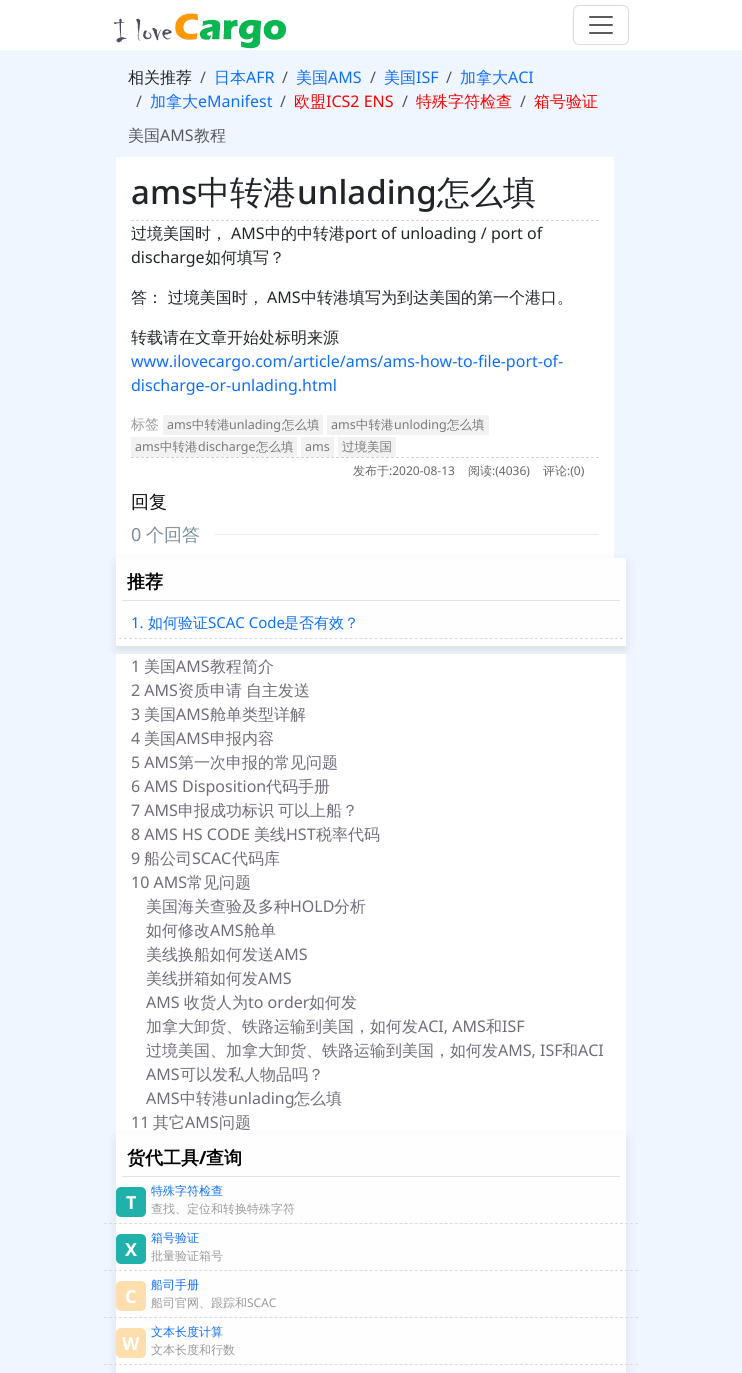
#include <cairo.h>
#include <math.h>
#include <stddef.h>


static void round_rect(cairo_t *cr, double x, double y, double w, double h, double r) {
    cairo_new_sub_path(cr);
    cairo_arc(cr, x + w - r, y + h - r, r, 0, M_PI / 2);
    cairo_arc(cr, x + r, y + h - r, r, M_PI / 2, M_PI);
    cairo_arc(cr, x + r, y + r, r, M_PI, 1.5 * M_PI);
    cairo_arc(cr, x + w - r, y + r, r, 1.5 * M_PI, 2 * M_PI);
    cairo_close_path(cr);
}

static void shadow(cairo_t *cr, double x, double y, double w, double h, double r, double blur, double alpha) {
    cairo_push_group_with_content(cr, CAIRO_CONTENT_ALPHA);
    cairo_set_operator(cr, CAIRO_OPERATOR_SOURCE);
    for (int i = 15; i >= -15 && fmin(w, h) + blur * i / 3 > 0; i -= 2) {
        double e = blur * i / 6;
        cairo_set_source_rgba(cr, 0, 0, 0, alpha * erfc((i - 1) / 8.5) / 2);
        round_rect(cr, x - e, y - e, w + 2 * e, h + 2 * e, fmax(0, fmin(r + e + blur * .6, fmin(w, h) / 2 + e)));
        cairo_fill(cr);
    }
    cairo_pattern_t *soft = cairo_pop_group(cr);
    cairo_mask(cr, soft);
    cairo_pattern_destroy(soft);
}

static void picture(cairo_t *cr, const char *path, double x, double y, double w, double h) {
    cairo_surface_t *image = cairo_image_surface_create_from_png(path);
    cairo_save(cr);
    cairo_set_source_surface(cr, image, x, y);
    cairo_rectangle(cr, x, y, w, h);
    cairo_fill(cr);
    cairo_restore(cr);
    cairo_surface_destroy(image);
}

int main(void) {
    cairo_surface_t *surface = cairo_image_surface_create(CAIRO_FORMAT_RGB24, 742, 1373);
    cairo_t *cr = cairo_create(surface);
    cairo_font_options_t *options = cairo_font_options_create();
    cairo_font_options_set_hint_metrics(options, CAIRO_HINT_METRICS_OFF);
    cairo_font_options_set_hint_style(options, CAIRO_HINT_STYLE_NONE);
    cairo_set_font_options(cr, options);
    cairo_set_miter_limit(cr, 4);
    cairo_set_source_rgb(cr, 0.941, 0.961, 1);
    cairo_paint(cr);
    cairo_set_source_rgb(cr, 1, 1, 1);
    cairo_rectangle(cr, 0, 0, 742, 50);
    cairo_fill(cr);
    picture(cr, "img1.png", 114, 13, 172, 36);
    round_rect(cr, 573.5, 5.5, 55, 39, 5.5);
    cairo_set_source_rgb(cr, 0.851, 0.851, 0.851);
    cairo_set_line_width(cr, 1);
    cairo_stroke(cr);
    picture(cr, "img2.png", 589, 16, 24, 18);
    cairo_select_font_face(cr, "WenQuanYi Zen Hei Medium", CAIRO_FONT_SLANT_NORMAL, CAIRO_FONT_WEIGHT_NORMAL);
    cairo_set_font_size(cr, 16);
    cairo_set_source_rgb(cr, 0.129, 0.145, 0.161);
    cairo_move_to(cr, 128, 83);
    cairo_show_text(cr, "相关推荐");
    cairo_select_font_face(cr, "Noto Sans", CAIRO_FONT_SLANT_NORMAL, CAIRO_FONT_WEIGHT_NORMAL);
    cairo_set_source_rgb(cr, 0.333, 0.349, 0.373);
    cairo_move_to(cr, 200, 83);
    cairo_show_text(cr, "/");
    cairo_select_font_face(cr, "WenQuanYi Zen Hei Medium", CAIRO_FONT_SLANT_NORMAL, CAIRO_FONT_WEIGHT_NORMAL);
    cairo_set_source_rgb(cr, 0.051, 0.431, 0.992);
    cairo_move_to(cr, 214, 83);
    cairo_show_text(cr, "日本");
    cairo_select_font_face(cr, "Noto Sans", CAIRO_FONT_SLANT_NORMAL, CAIRO_FONT_WEIGHT_NORMAL);
    cairo_move_to(cr, 246, 83);
    cairo_show_text(cr, "AFR");
    cairo_set_source_rgb(cr, 0.333, 0.349, 0.373);
    cairo_move_to(cr, 282, 83);
    cairo_show_text(cr, "/");
    cairo_select_font_face(cr, "WenQuanYi Zen Hei Medium", CAIRO_FONT_SLANT_NORMAL, CAIRO_FONT_WEIGHT_NORMAL);
    cairo_set_source_rgb(cr, 0.051, 0.431, 0.992);
    cairo_move_to(cr, 296, 83);
    cairo_show_text(cr, "美国");
    cairo_select_font_face(cr, "Noto Sans", CAIRO_FONT_SLANT_NORMAL, CAIRO_FONT_WEIGHT_NORMAL);
    cairo_move_to(cr, 328, 83);
    cairo_show_text(cr, "AMS");
    cairo_set_source_rgb(cr, 0.333, 0.349, 0.373);
    cairo_move_to(cr, 370, 83);
    cairo_show_text(cr, "/");
    cairo_select_font_face(cr, "WenQuanYi Zen Hei Medium", CAIRO_FONT_SLANT_NORMAL, CAIRO_FONT_WEIGHT_NORMAL);
    cairo_set_source_rgb(cr, 0.051, 0.431, 0.992);
    cairo_move_to(cr, 384, 83);
    cairo_show_text(cr, "美国");
    cairo_select_font_face(cr, "Noto Sans", CAIRO_FONT_SLANT_NORMAL, CAIRO_FONT_WEIGHT_NORMAL);
    cairo_move_to(cr, 416, 83);
    cairo_show_text(cr, "ISF");
    cairo_set_source_rgb(cr, 0.333, 0.349, 0.373);
    cairo_move_to(cr, 446, 83);
    cairo_show_text(cr, "/");
    cairo_select_font_face(cr, "WenQuanYi Zen Hei Medium", CAIRO_FONT_SLANT_NORMAL, CAIRO_FONT_WEIGHT_NORMAL);
    cairo_set_source_rgb(cr, 0.051, 0.431, 0.992);
    cairo_move_to(cr, 460, 83);
    cairo_show_text(cr, "加拿大");
    cairo_select_font_face(cr, "Noto Sans", CAIRO_FONT_SLANT_NORMAL, CAIRO_FONT_WEIGHT_NORMAL);
    cairo_move_to(cr, 508, 83);
    cairo_show_text(cr, "ACI");
    cairo_set_source_rgb(cr, 0.333, 0.349, 0.373);
    cairo_move_to(cr, 136, 107);
    cairo_show_text(cr, "/");
    cairo_select_font_face(cr, "WenQuanYi Zen Hei Medium", CAIRO_FONT_SLANT_NORMAL, CAIRO_FONT_WEIGHT_NORMAL);
    cairo_set_source_rgb(cr, 0.051, 0.431, 0.992);
    cairo_move_to(cr, 150, 107);
    cairo_show_text(cr, "加拿大");
    cairo_select_font_face(cr, "Noto Sans", CAIRO_FONT_SLANT_NORMAL, CAIRO_FONT_WEIGHT_NORMAL);
    cairo_move_to(cr, 198, 107);
    cairo_show_text(cr, "eManifest");
    cairo_set_source_rgb(cr, 0.333, 0.349, 0.373);
    cairo_move_to(cr, 280, 107);
    cairo_show_text(cr, "/");
    cairo_select_font_face(cr, "WenQuanYi Zen Hei Medium", CAIRO_FONT_SLANT_NORMAL, CAIRO_FONT_WEIGHT_NORMAL);
    cairo_set_source_rgb(cr, 1, 0, 0);
    cairo_move_to(cr, 294, 107);
    cairo_show_text(cr, "欧盟");
    cairo_select_font_face(cr, "Noto Sans", CAIRO_FONT_SLANT_NORMAL, CAIRO_FONT_WEIGHT_NORMAL);
    cairo_move_to(cr, 326, 107);
    cairo_show_text(cr, "ICS2 ENS");
    cairo_set_source_rgb(cr, 0.333, 0.349, 0.373);
    cairo_move_to(cr, 402, 107);
    cairo_show_text(cr, "/");
    cairo_select_font_face(cr, "WenQuanYi Zen Hei Medium", CAIRO_FONT_SLANT_NORMAL, CAIRO_FONT_WEIGHT_NORMAL);
    cairo_set_source_rgb(cr, 1, 0, 0);
    cairo_move_to(cr, 416, 107);
    cairo_show_text(cr, "特殊字符检查");
    cairo_select_font_face(cr, "Noto Sans", CAIRO_FONT_SLANT_NORMAL, CAIRO_FONT_WEIGHT_NORMAL);
    cairo_set_source_rgb(cr, 0.333, 0.349, 0.373);
    cairo_move_to(cr, 520, 107);
    cairo_show_text(cr, "/");
    cairo_select_font_face(cr, "WenQuanYi Zen Hei Medium", CAIRO_FONT_SLANT_NORMAL, CAIRO_FONT_WEIGHT_NORMAL);
    cairo_set_source_rgb(cr, 1, 0, 0);
    cairo_move_to(cr, 534, 107);
    cairo_show_text(cr, "箱号验证");
    cairo_set_source_rgb(cr, 0.333, 0.349, 0.373);
    cairo_move_to(cr, 128, 141);
    cairo_show_text(cr, "美国");
    cairo_select_font_face(cr, "Noto Sans", CAIRO_FONT_SLANT_NORMAL, CAIRO_FONT_WEIGHT_NORMAL);
    cairo_move_to(cr, 160, 141);
    cairo_show_text(cr, "AMS");
    cairo_select_font_face(cr, "WenQuanYi Zen Hei Medium", CAIRO_FONT_SLANT_NORMAL, CAIRO_FONT_WEIGHT_NORMAL);
    cairo_move_to(cr, 194, 141);
    cairo_show_text(cr, "教程");
    cairo_set_source_rgb(cr, 1, 1, 1);
    cairo_rectangle(cr, 116, 157, 498, 401);
    cairo_fill(cr);
    cairo_new_path(cr);
    cairo_move_to(cr, 131, 220.5);
    cairo_line_to(cr, 599, 220.5);
    cairo_set_source_rgb(cr, 0.827, 0.827, 0.827);
    cairo_set_dash(cr, (double[]){3, 2}, 2, 0);
    cairo_stroke(cr);
    cairo_select_font_face(cr, "Noto Sans Medium", CAIRO_FONT_SLANT_NORMAL, CAIRO_FONT_WEIGHT_NORMAL);
    cairo_set_font_size(cr, 33);
    cairo_set_source_rgb(cr, 0.129, 0.145, 0.161);
    cairo_move_to(cr, 131, 204);
    cairo_show_text(cr, "ams");
    cairo_select_font_face(cr, "WenQuanYi Zen Hei Medium", CAIRO_FONT_SLANT_NORMAL, CAIRO_FONT_WEIGHT_NORMAL);
    cairo_move_to(cr, 197, 204);
    cairo_show_text(cr, "中转港");
    cairo_select_font_face(cr, "Noto Sans Medium", CAIRO_FONT_SLANT_NORMAL, CAIRO_FONT_WEIGHT_NORMAL);
    cairo_move_to(cr, 297, 204);
    cairo_show_text(cr, "unlading");
    cairo_select_font_face(cr, "WenQuanYi Zen Hei Medium", CAIRO_FONT_SLANT_NORMAL, CAIRO_FONT_WEIGHT_NORMAL);
    cairo_move_to(cr, 437, 204);
    cairo_show_text(cr, "怎么填");
    cairo_set_font_size(cr, 16);
    cairo_move_to(cr, 131, 239);
    cairo_show_text(cr, "过境美国时，");
    cairo_select_font_face(cr, "Noto Sans", CAIRO_FONT_SLANT_NORMAL, CAIRO_FONT_WEIGHT_NORMAL);
    cairo_move_to(cr, 231, 239);
    cairo_show_text(cr, "AMS");
    cairo_select_font_face(cr, "WenQuanYi Zen Hei Medium", CAIRO_FONT_SLANT_NORMAL, CAIRO_FONT_WEIGHT_NORMAL);
    cairo_move_to(cr, 265, 239);
    cairo_show_text(cr, "中的中转港");
    cairo_select_font_face(cr, "Noto Sans", CAIRO_FONT_SLANT_NORMAL, CAIRO_FONT_WEIGHT_NORMAL);
    cairo_move_to(cr, 345, 239);
    cairo_show_text(cr, "port of unloading / port of");
    cairo_move_to(cr, 131, 263);
    cairo_show_text(cr, "discharge");
    cairo_select_font_face(cr, "WenQuanYi Zen Hei Medium", CAIRO_FONT_SLANT_NORMAL, CAIRO_FONT_WEIGHT_NORMAL);
    cairo_move_to(cr, 205, 263);
    cairo_show_text(cr, "如何填写？");
    cairo_move_to(cr, 131, 303);
    cairo_show_text(cr, "答： 过境美国时，");
    cairo_select_font_face(cr, "Noto Sans", CAIRO_FONT_SLANT_NORMAL, CAIRO_FONT_WEIGHT_NORMAL);
    cairo_move_to(cr, 267, 303);
    cairo_show_text(cr, "AMS");
    cairo_select_font_face(cr, "WenQuanYi Zen Hei Medium", CAIRO_FONT_SLANT_NORMAL, CAIRO_FONT_WEIGHT_NORMAL);
    cairo_move_to(cr, 301, 303);
    cairo_show_text(cr, "中转港填写为到达美国的第一个港口。");
    cairo_move_to(cr, 131, 343);
    cairo_show_text(cr, "转载请在文章开始处标明来源");
    cairo_select_font_face(cr, "Noto Sans", CAIRO_FONT_SLANT_NORMAL, CAIRO_FONT_WEIGHT_NORMAL);
    cairo_set_source_rgb(cr, 0.051, 0.431, 0.992);
    cairo_move_to(cr, 131, 367);
    cairo_show_text(cr, "www.ilovecargo.com/article/ams/ams-how-to-file-port-of-");
    cairo_move_to(cr, 131, 391);
    cairo_show_text(cr, "discharge-or-unlading.html");
    cairo_select_font_face(cr, "WenQuanYi Zen Hei Medium", CAIRO_FONT_SLANT_NORMAL, CAIRO_FONT_WEIGHT_NORMAL);
    cairo_set_font_size(cr, 14);
    cairo_set_source_rgb(cr, 0.6, 0.6, 0.6);
    cairo_move_to(cr, 131, 429);
    cairo_show_text(cr, "标签");
    cairo_set_source_rgb(cr, 0.949, 0.949, 0.949);
    cairo_rectangle(cr, 163, 415, 160, 20);
    cairo_fill(cr);
    cairo_select_font_face(cr, "Noto Sans", CAIRO_FONT_SLANT_NORMAL, CAIRO_FONT_WEIGHT_NORMAL);
    cairo_set_font_size(cr, 12.5);
    cairo_set_source_rgb(cr, 0.471, 0.471, 0.471);
    cairo_move_to(cr, 167, 429);
    cairo_show_text(cr, "ams");
    cairo_select_font_face(cr, "WenQuanYi Zen Hei Medium", CAIRO_FONT_SLANT_NORMAL, CAIRO_FONT_WEIGHT_NORMAL);
    cairo_move_to(cr, 192, 429);
    cairo_show_text(cr, "中转港");
    cairo_select_font_face(cr, "Noto Sans", CAIRO_FONT_SLANT_NORMAL, CAIRO_FONT_WEIGHT_NORMAL);
    cairo_move_to(cr, 229, 429);
    cairo_show_text(cr, "unlading");
    cairo_select_font_face(cr, "WenQuanYi Zen Hei Medium", CAIRO_FONT_SLANT_NORMAL, CAIRO_FONT_WEIGHT_NORMAL);
    cairo_move_to(cr, 282, 429);
    cairo_show_text(cr, "怎么填");
    cairo_set_source_rgb(cr, 0.949, 0.949, 0.949);
    cairo_rectangle(cr, 327, 415, 162, 20);
    cairo_fill(cr);
    cairo_select_font_face(cr, "Noto Sans", CAIRO_FONT_SLANT_NORMAL, CAIRO_FONT_WEIGHT_NORMAL);
    cairo_set_source_rgb(cr, 0.471, 0.471, 0.471);
    cairo_move_to(cr, 331, 429);
    cairo_show_text(cr, "ams");
    cairo_select_font_face(cr, "WenQuanYi Zen Hei Medium", CAIRO_FONT_SLANT_NORMAL, CAIRO_FONT_WEIGHT_NORMAL);
    cairo_move_to(cr, 356, 429);
    cairo_show_text(cr, "中转港");
    cairo_select_font_face(cr, "Noto Sans", CAIRO_FONT_SLANT_NORMAL, CAIRO_FONT_WEIGHT_NORMAL);
    cairo_move_to(cr, 394, 429);
    cairo_show_text(cr, "unloding");
    cairo_select_font_face(cr, "WenQuanYi Zen Hei Medium", CAIRO_FONT_SLANT_NORMAL, CAIRO_FONT_WEIGHT_NORMAL);
    cairo_move_to(cr, 447, 429);
    cairo_show_text(cr, "怎么填");
    cairo_set_source_rgb(cr, 0.949, 0.949, 0.949);
    cairo_rectangle(cr, 131, 437, 166, 20);
    cairo_fill(cr);
    cairo_select_font_face(cr, "Noto Sans", CAIRO_FONT_SLANT_NORMAL, CAIRO_FONT_WEIGHT_NORMAL);
    cairo_set_source_rgb(cr, 0.471, 0.471, 0.471);
    cairo_move_to(cr, 135, 451);
    cairo_show_text(cr, "ams");
    cairo_select_font_face(cr, "WenQuanYi Zen Hei Medium", CAIRO_FONT_SLANT_NORMAL, CAIRO_FONT_WEIGHT_NORMAL);
    cairo_move_to(cr, 160, 451);
    cairo_show_text(cr, "中转港");
    cairo_select_font_face(cr, "Noto Sans", CAIRO_FONT_SLANT_NORMAL, CAIRO_FONT_WEIGHT_NORMAL);
    cairo_move_to(cr, 198, 451);
    cairo_show_text(cr, "discharge");
    cairo_select_font_face(cr, "WenQuanYi Zen Hei Medium", CAIRO_FONT_SLANT_NORMAL, CAIRO_FONT_WEIGHT_NORMAL);
    cairo_move_to(cr, 256, 451);
    cairo_show_text(cr, "怎么填");
    cairo_set_source_rgb(cr, 0.949, 0.949, 0.949);
    cairo_rectangle(cr, 301, 437, 33, 20);
    cairo_fill(cr);
    cairo_select_font_face(cr, "Noto Sans", CAIRO_FONT_SLANT_NORMAL, CAIRO_FONT_WEIGHT_NORMAL);
    cairo_set_source_rgb(cr, 0.471, 0.471, 0.471);
    cairo_move_to(cr, 305, 451);
    cairo_show_text(cr, "ams");
    cairo_set_source_rgb(cr, 0.949, 0.949, 0.949);
    cairo_rectangle(cr, 338, 437, 58, 20);
    cairo_fill(cr);
    cairo_select_font_face(cr, "WenQuanYi Zen Hei Medium", CAIRO_FONT_SLANT_NORMAL, CAIRO_FONT_WEIGHT_NORMAL);
    cairo_set_source_rgb(cr, 0.471, 0.471, 0.471);
    cairo_move_to(cr, 342, 451);
    cairo_show_text(cr, "过境美国");
    cairo_set_font_size(cr, 12);
    cairo_set_source_rgb(cr, 0.4, 0.4, 0.4);
    cairo_move_to(cr, 353, 475);
    cairo_show_text(cr, "发布于");
    cairo_select_font_face(cr, "Noto Sans", CAIRO_FONT_SLANT_NORMAL, CAIRO_FONT_WEIGHT_NORMAL);
    cairo_move_to(cr, 389, 475);
    cairo_show_text(cr, ":2020-08-13");
    cairo_select_font_face(cr, "WenQuanYi Zen Hei Medium", CAIRO_FONT_SLANT_NORMAL, CAIRO_FONT_WEIGHT_NORMAL);
    cairo_move_to(cr, 468, 475);
    cairo_show_text(cr, "阅读");
    cairo_select_font_face(cr, "Noto Sans", CAIRO_FONT_SLANT_NORMAL, CAIRO_FONT_WEIGHT_NORMAL);
    cairo_move_to(cr, 492, 475);
    cairo_show_text(cr, ":(4036)");
    cairo_select_font_face(cr, "WenQuanYi Zen Hei Medium", CAIRO_FONT_SLANT_NORMAL, CAIRO_FONT_WEIGHT_NORMAL);
    cairo_move_to(cr, 543, 475);
    cairo_show_text(cr, "评论");
    cairo_select_font_face(cr, "Noto Sans", CAIRO_FONT_SLANT_NORMAL, CAIRO_FONT_WEIGHT_NORMAL);
    cairo_move_to(cr, 567, 475);
    cairo_show_text(cr, ":(0)");
    cairo_new_path(cr);
    cairo_move_to(cr, 131, 457.5);
    cairo_line_to(cr, 599, 457.5);
    cairo_set_source_rgb(cr, 0.827, 0.827, 0.827);
    cairo_stroke(cr);
    cairo_select_font_face(cr, "WenQuanYi Zen Hei Medium", CAIRO_FONT_SLANT_NORMAL, CAIRO_FONT_WEIGHT_NORMAL);
    cairo_set_font_size(cr, 18);
    cairo_set_source_rgb(cr, 0.047, 0.047, 0.047);
    cairo_move_to(cr, 131, 508);
    cairo_show_text(cr, "回复");
    cairo_select_font_face(cr, "Noto Sans", CAIRO_FONT_SLANT_NORMAL, CAIRO_FONT_WEIGHT_NORMAL);
    cairo_set_source_rgb(cr, 0.478, 0.561, 0.604);
    cairo_move_to(cr, 131, 541);
    cairo_show_text(cr, "0");
    cairo_select_font_face(cr, "WenQuanYi Zen Hei Medium", CAIRO_FONT_SLANT_NORMAL, CAIRO_FONT_WEIGHT_NORMAL);
    cairo_move_to(cr, 146, 541);
    cairo_show_text(cr, "个回答");
    cairo_set_source_rgb(cr, 0.91, 0.925, 0.933);
    cairo_rectangle(cr, 215, 534, 384, 1);
    cairo_fill(cr);
    cairo_set_source_rgb(cr, 0, 0, 0);
    shadow(cr, 116, 562, 510, 88, 0, 5, 0.1);
    cairo_set_source_rgb(cr, 0.996, 0.996, 0.996);
    cairo_rectangle(cr, 116, 558, 510, 88);
    cairo_fill(cr);
    cairo_set_source_rgb(cr, 0.89, 0.89, 0.89);
    cairo_rectangle(cr, 122, 600, 498, 1);
    cairo_fill(cr);
    cairo_select_font_face(cr, "WenQuanYi Zen Hei", CAIRO_FONT_SLANT_NORMAL, CAIRO_FONT_WEIGHT_BOLD);
    cairo_set_source_rgb(cr, 0, 0, 0);
    cairo_move_to(cr, 127, 588);
    cairo_show_text(cr, "推荐");
    cairo_new_path(cr);
    cairo_move_to(cr, 119, 638.5);
    cairo_line_to(cr, 623, 638.5);
    cairo_set_source_rgb(cr, 0.859, 0.859, 0.859);
    cairo_set_dash(cr, (double[]){3, 2.01}, 2, 0);
    cairo_stroke(cr);
    cairo_select_font_face(cr, "Noto Sans", CAIRO_FONT_SLANT_NORMAL, CAIRO_FONT_WEIGHT_NORMAL);
    cairo_set_font_size(cr, 15);
    cairo_set_source_rgb(cr, 0.051, 0.431, 0.992);
    cairo_move_to(cr, 131, 628);
    cairo_show_text(cr, "1.");
    cairo_select_font_face(cr, "WenQuanYi Zen Hei Medium", CAIRO_FONT_SLANT_NORMAL, CAIRO_FONT_WEIGHT_NORMAL);
    cairo_move_to(cr, 148, 628);
    cairo_show_text(cr, "如何验证");
    cairo_select_font_face(cr, "Noto Sans", CAIRO_FONT_SLANT_NORMAL, CAIRO_FONT_WEIGHT_NORMAL);
    cairo_move_to(cr, 208, 628);
    cairo_show_text(cr, "SCAC Code");
    cairo_select_font_face(cr, "WenQuanYi Zen Hei Medium", CAIRO_FONT_SLANT_NORMAL, CAIRO_FONT_WEIGHT_NORMAL);
    cairo_move_to(cr, 284, 628);
    cairo_show_text(cr, "是否有效？");
    cairo_set_source_rgb(cr, 1, 1, 1);
    cairo_rectangle(cr, 116, 654, 510, 480);
    cairo_fill(cr);
    cairo_select_font_face(cr, "Noto Sans", CAIRO_FONT_SLANT_NORMAL, CAIRO_FONT_WEIGHT_NORMAL);
    cairo_set_font_size(cr, 16);
    cairo_set_source_rgb(cr, 0.443, 0.42, 0.478);
    cairo_move_to(cr, 131, 672);
    cairo_show_text(cr, "1");
    cairo_select_font_face(cr, "WenQuanYi Zen Hei Medium", CAIRO_FONT_SLANT_NORMAL, CAIRO_FONT_WEIGHT_NORMAL);
    cairo_move_to(cr, 144, 672);
    cairo_show_text(cr, "美国");
    cairo_select_font_face(cr, "Noto Sans", CAIRO_FONT_SLANT_NORMAL, CAIRO_FONT_WEIGHT_NORMAL);
    cairo_move_to(cr, 176, 672);
    cairo_show_text(cr, "AMS");
    cairo_select_font_face(cr, "WenQuanYi Zen Hei Medium", CAIRO_FONT_SLANT_NORMAL, CAIRO_FONT_WEIGHT_NORMAL);
    cairo_move_to(cr, 210, 672);
    cairo_show_text(cr, "教程简介");
    cairo_select_font_face(cr, "Noto Sans", CAIRO_FONT_SLANT_NORMAL, CAIRO_FONT_WEIGHT_NORMAL);
    cairo_move_to(cr, 131, 696);
    cairo_show_text(cr, "2 AMS");
    cairo_select_font_face(cr, "WenQuanYi Zen Hei Medium", CAIRO_FONT_SLANT_NORMAL, CAIRO_FONT_WEIGHT_NORMAL);
    cairo_move_to(cr, 178, 696);
    cairo_show_text(cr, "资质申请");
    cairo_move_to(cr, 246, 696);
    cairo_show_text(cr, "自主发送");
    cairo_select_font_face(cr, "Noto Sans", CAIRO_FONT_SLANT_NORMAL, CAIRO_FONT_WEIGHT_NORMAL);
    cairo_move_to(cr, 131, 720);
    cairo_show_text(cr, "3");
    cairo_select_font_face(cr, "WenQuanYi Zen Hei Medium", CAIRO_FONT_SLANT_NORMAL, CAIRO_FONT_WEIGHT_NORMAL);
    cairo_move_to(cr, 144, 720);
    cairo_show_text(cr, "美国");
    cairo_select_font_face(cr, "Noto Sans", CAIRO_FONT_SLANT_NORMAL, CAIRO_FONT_WEIGHT_NORMAL);
    cairo_move_to(cr, 176, 720);
    cairo_show_text(cr, "AMS");
    cairo_select_font_face(cr, "WenQuanYi Zen Hei Medium", CAIRO_FONT_SLANT_NORMAL, CAIRO_FONT_WEIGHT_NORMAL);
    cairo_move_to(cr, 210, 720);
    cairo_show_text(cr, "舱单类型详解");
    cairo_select_font_face(cr, "Noto Sans", CAIRO_FONT_SLANT_NORMAL, CAIRO_FONT_WEIGHT_NORMAL);
    cairo_move_to(cr, 131, 744);
    cairo_show_text(cr, "4");
    cairo_select_font_face(cr, "WenQuanYi Zen Hei Medium", CAIRO_FONT_SLANT_NORMAL, CAIRO_FONT_WEIGHT_NORMAL);
    cairo_move_to(cr, 144, 744);
    cairo_show_text(cr, "美国");
    cairo_select_font_face(cr, "Noto Sans", CAIRO_FONT_SLANT_NORMAL, CAIRO_FONT_WEIGHT_NORMAL);
    cairo_move_to(cr, 176, 744);
    cairo_show_text(cr, "AMS");
    cairo_select_font_face(cr, "WenQuanYi Zen Hei Medium", CAIRO_FONT_SLANT_NORMAL, CAIRO_FONT_WEIGHT_NORMAL);
    cairo_move_to(cr, 210, 744);
    cairo_show_text(cr, "申报内容");
    cairo_select_font_face(cr, "Noto Sans", CAIRO_FONT_SLANT_NORMAL, CAIRO_FONT_WEIGHT_NORMAL);
    cairo_move_to(cr, 131, 768);
    cairo_show_text(cr, "5 AMS");
    cairo_select_font_face(cr, "WenQuanYi Zen Hei Medium", CAIRO_FONT_SLANT_NORMAL, CAIRO_FONT_WEIGHT_NORMAL);
    cairo_move_to(cr, 178, 768);
    cairo_show_text(cr, "第一次申报的常见问题");
    cairo_select_font_face(cr, "Noto Sans", CAIRO_FONT_SLANT_NORMAL, CAIRO_FONT_WEIGHT_NORMAL);
    cairo_move_to(cr, 131, 792);
    cairo_show_text(cr, "6 AMS Disposition");
    cairo_select_font_face(cr, "WenQuanYi Zen Hei Medium", CAIRO_FONT_SLANT_NORMAL, CAIRO_FONT_WEIGHT_NORMAL);
    cairo_move_to(cr, 266, 792);
    cairo_show_text(cr, "代码手册");
    cairo_select_font_face(cr, "Noto Sans", CAIRO_FONT_SLANT_NORMAL, CAIRO_FONT_WEIGHT_NORMAL);
    cairo_move_to(cr, 131, 816);
    cairo_show_text(cr, "7 AMS");
    cairo_select_font_face(cr, "WenQuanYi Zen Hei Medium", CAIRO_FONT_SLANT_NORMAL, CAIRO_FONT_WEIGHT_NORMAL);
    cairo_move_to(cr, 178, 816);
    cairo_show_text(cr, "申报成功标识");
    cairo_move_to(cr, 278, 816);
    cairo_show_text(cr, "可以上船？");
    cairo_select_font_face(cr, "Noto Sans", CAIRO_FONT_SLANT_NORMAL, CAIRO_FONT_WEIGHT_NORMAL);
    cairo_move_to(cr, 131, 840);
    cairo_show_text(cr, "8 AMS HS CODE");
    cairo_select_font_face(cr, "WenQuanYi Zen Hei Medium", CAIRO_FONT_SLANT_NORMAL, CAIRO_FONT_WEIGHT_NORMAL);
    cairo_move_to(cr, 254, 840);
    cairo_show_text(cr, "美线");
    cairo_select_font_face(cr, "Noto Sans", CAIRO_FONT_SLANT_NORMAL, CAIRO_FONT_WEIGHT_NORMAL);
    cairo_move_to(cr, 286, 840);
    cairo_show_text(cr, "HST");
    cairo_select_font_face(cr, "WenQuanYi Zen Hei Medium", CAIRO_FONT_SLANT_NORMAL, CAIRO_FONT_WEIGHT_NORMAL);
    cairo_move_to(cr, 316, 840);
    cairo_show_text(cr, "税率代码");
    cairo_select_font_face(cr, "Noto Sans", CAIRO_FONT_SLANT_NORMAL, CAIRO_FONT_WEIGHT_NORMAL);
    cairo_move_to(cr, 131, 864);
    cairo_show_text(cr, "9");
    cairo_select_font_face(cr, "WenQuanYi Zen Hei Medium", CAIRO_FONT_SLANT_NORMAL, CAIRO_FONT_WEIGHT_NORMAL);
    cairo_move_to(cr, 144, 864);
    cairo_show_text(cr, "船公司");
    cairo_select_font_face(cr, "Noto Sans", CAIRO_FONT_SLANT_NORMAL, CAIRO_FONT_WEIGHT_NORMAL);
    cairo_move_to(cr, 192, 864);
    cairo_show_text(cr, "SCAC");
    cairo_select_font_face(cr, "WenQuanYi Zen Hei Medium", CAIRO_FONT_SLANT_NORMAL, CAIRO_FONT_WEIGHT_NORMAL);
    cairo_move_to(cr, 232, 864);
    cairo_show_text(cr, "代码库");
    cairo_select_font_face(cr, "Noto Sans", CAIRO_FONT_SLANT_NORMAL, CAIRO_FONT_WEIGHT_NORMAL);
    cairo_move_to(cr, 131, 888);
    cairo_show_text(cr, "10 AMS");
    cairo_select_font_face(cr, "WenQuanYi Zen Hei Medium", CAIRO_FONT_SLANT_NORMAL, CAIRO_FONT_WEIGHT_NORMAL);
    cairo_move_to(cr, 187, 888);
    cairo_show_text(cr, "常见问题");
    cairo_move_to(cr, 146, 912);
    cairo_show_text(cr, "美国海关查验及多种");
    cairo_select_font_face(cr, "Noto Sans", CAIRO_FONT_SLANT_NORMAL, CAIRO_FONT_WEIGHT_NORMAL);
    cairo_move_to(cr, 290, 912);
    cairo_show_text(cr, "HOLD");
    cairo_select_font_face(cr, "WenQuanYi Zen Hei Medium", CAIRO_FONT_SLANT_NORMAL, CAIRO_FONT_WEIGHT_NORMAL);
    cairo_move_to(cr, 334, 912);
    cairo_show_text(cr, "分析");
    cairo_move_to(cr, 146, 936);
    cairo_show_text(cr, "如何修改");
    cairo_select_font_face(cr, "Noto Sans", CAIRO_FONT_SLANT_NORMAL, CAIRO_FONT_WEIGHT_NORMAL);
    cairo_move_to(cr, 210, 936);
    cairo_show_text(cr, "AMS");
    cairo_select_font_face(cr, "WenQuanYi Zen Hei Medium", CAIRO_FONT_SLANT_NORMAL, CAIRO_FONT_WEIGHT_NORMAL);
    cairo_move_to(cr, 244, 936);
    cairo_show_text(cr, "舱单");
    cairo_move_to(cr, 146, 960);
    cairo_show_text(cr, "美线换船如何发送");
    cairo_select_font_face(cr, "Noto Sans", CAIRO_FONT_SLANT_NORMAL, CAIRO_FONT_WEIGHT_NORMAL);
    cairo_move_to(cr, 274, 960);
    cairo_show_text(cr, "AMS");
    cairo_select_font_face(cr, "WenQuanYi Zen Hei Medium", CAIRO_FONT_SLANT_NORMAL, CAIRO_FONT_WEIGHT_NORMAL);
    cairo_move_to(cr, 146, 984);
    cairo_show_text(cr, "美线拼箱如何发");
    cairo_select_font_face(cr, "Noto Sans", CAIRO_FONT_SLANT_NORMAL, CAIRO_FONT_WEIGHT_NORMAL);
    cairo_move_to(cr, 258, 984);
    cairo_show_text(cr, "AMS");
    cairo_move_to(cr, 146, 1008);
    cairo_show_text(cr, "AMS");
    cairo_select_font_face(cr, "WenQuanYi Zen Hei Medium", CAIRO_FONT_SLANT_NORMAL, CAIRO_FONT_WEIGHT_NORMAL);
    cairo_move_to(cr, 184, 1008);
    cairo_show_text(cr, "收货人为");
    cairo_select_font_face(cr, "Noto Sans", CAIRO_FONT_SLANT_NORMAL, CAIRO_FONT_WEIGHT_NORMAL);
    cairo_move_to(cr, 248, 1008);
    cairo_show_text(cr, "to order");
    cairo_select_font_face(cr, "WenQuanYi Zen Hei Medium", CAIRO_FONT_SLANT_NORMAL, CAIRO_FONT_WEIGHT_NORMAL);
    cairo_move_to(cr, 309, 1008);
    cairo_show_text(cr, "如何发");
    cairo_move_to(cr, 146, 1032);
    cairo_show_text(cr, "加拿大卸货、铁路运输到美国，如何发");
    cairo_select_font_face(cr, "Noto Sans", CAIRO_FONT_SLANT_NORMAL, CAIRO_FONT_WEIGHT_NORMAL);
    cairo_move_to(cr, 418, 1032);
    cairo_show_text(cr, "ACI, AMS");
    cairo_select_font_face(cr, "WenQuanYi Zen Hei Medium", CAIRO_FONT_SLANT_NORMAL, CAIRO_FONT_WEIGHT_NORMAL);
    cairo_move_to(cr, 486, 1032);
    cairo_show_text(cr, "和");
    cairo_select_font_face(cr, "Noto Sans", CAIRO_FONT_SLANT_NORMAL, CAIRO_FONT_WEIGHT_NORMAL);
    cairo_move_to(cr, 502, 1032);
    cairo_show_text(cr, "ISF");
    cairo_select_font_face(cr, "WenQuanYi Zen Hei Medium", CAIRO_FONT_SLANT_NORMAL, CAIRO_FONT_WEIGHT_NORMAL);
    cairo_move_to(cr, 146, 1056);
    cairo_show_text(cr, "过境美国、加拿大卸货、铁路运输到美国，如何发");
    cairo_select_font_face(cr, "Noto Sans", CAIRO_FONT_SLANT_NORMAL, CAIRO_FONT_WEIGHT_NORMAL);
    cairo_move_to(cr, 498, 1056);
    cairo_show_text(cr, "AMS, ISF");
    cairo_select_font_face(cr, "WenQuanYi Zen Hei Medium", CAIRO_FONT_SLANT_NORMAL, CAIRO_FONT_WEIGHT_NORMAL);
    cairo_move_to(cr, 562, 1056);
    cairo_show_text(cr, "和");
    cairo_select_font_face(cr, "Noto Sans", CAIRO_FONT_SLANT_NORMAL, CAIRO_FONT_WEIGHT_NORMAL);
    cairo_move_to(cr, 578, 1056);
    cairo_show_text(cr, "ACI");
    cairo_move_to(cr, 146, 1080);
    cairo_show_text(cr, "AMS");
    cairo_select_font_face(cr, "WenQuanYi Zen Hei Medium", CAIRO_FONT_SLANT_NORMAL, CAIRO_FONT_WEIGHT_NORMAL);
    cairo_move_to(cr, 180, 1080);
    cairo_show_text(cr, "可以发私人物品吗？");
    cairo_select_font_face(cr, "Noto Sans", CAIRO_FONT_SLANT_NORMAL, CAIRO_FONT_WEIGHT_NORMAL);
    cairo_move_to(cr, 146, 1104);
    cairo_show_text(cr, "AMS");
    cairo_select_font_face(cr, "WenQuanYi Zen Hei Medium", CAIRO_FONT_SLANT_NORMAL, CAIRO_FONT_WEIGHT_NORMAL);
    cairo_move_to(cr, 180, 1104);
    cairo_show_text(cr, "中转港");
    cairo_select_font_face(cr, "Noto Sans", CAIRO_FONT_SLANT_NORMAL, CAIRO_FONT_WEIGHT_NORMAL);
    cairo_move_to(cr, 228, 1104);
    cairo_show_text(cr, "unlading");
    cairo_select_font_face(cr, "WenQuanYi Zen Hei Medium", CAIRO_FONT_SLANT_NORMAL, CAIRO_FONT_WEIGHT_NORMAL);
    cairo_move_to(cr, 294, 1104);
    cairo_show_text(cr, "怎么填");
    cairo_set_source_rgb(cr, 0, 0, 0);
    shadow(cr, 116, 1138, 510, 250, 0, 5, 0.1);
    cairo_select_font_face(cr, "Noto Sans", CAIRO_FONT_SLANT_NORMAL, CAIRO_FONT_WEIGHT_NORMAL);
    cairo_set_source_rgb(cr, 0.443, 0.42, 0.478);
    cairo_move_to(cr, 131, 1128);
    cairo_show_text(cr, "11");
    cairo_select_font_face(cr, "WenQuanYi Zen Hei Medium", CAIRO_FONT_SLANT_NORMAL, CAIRO_FONT_WEIGHT_NORMAL);
    cairo_move_to(cr, 153, 1128);
    cairo_show_text(cr, "其它");
    cairo_select_font_face(cr, "Noto Sans", CAIRO_FONT_SLANT_NORMAL, CAIRO_FONT_WEIGHT_NORMAL);
    cairo_move_to(cr, 185, 1128);
    cairo_show_text(cr, "AMS");
    cairo_select_font_face(cr, "WenQuanYi Zen Hei Medium", CAIRO_FONT_SLANT_NORMAL, CAIRO_FONT_WEIGHT_NORMAL);
    cairo_move_to(cr, 219, 1128);
    cairo_show_text(cr, "问题");
    cairo_set_source_rgb(cr, 0.996, 0.996, 0.996);
    cairo_rectangle(cr, 116, 1134, 510, 239);
    cairo_fill(cr);
    cairo_set_source_rgb(cr, 0.89, 0.89, 0.89);
    cairo_rectangle(cr, 122, 1176, 498, 1);
    cairo_fill(cr);
    cairo_select_font_face(cr, "WenQuanYi Zen Hei", CAIRO_FONT_SLANT_NORMAL, CAIRO_FONT_WEIGHT_BOLD);
    cairo_set_font_size(cr, 18);
    cairo_set_source_rgb(cr, 0, 0, 0);
    cairo_move_to(cr, 127, 1164);
    cairo_show_text(cr, "货代工具");
    cairo_select_font_face(cr, "Noto Sans", CAIRO_FONT_SLANT_NORMAL, CAIRO_FONT_WEIGHT_BOLD);
    cairo_move_to(cr, 199, 1164);
    cairo_show_text(cr, "/");
    cairo_select_font_face(cr, "WenQuanYi Zen Hei", CAIRO_FONT_SLANT_NORMAL, CAIRO_FONT_WEIGHT_BOLD);
    cairo_move_to(cr, 206, 1164);
    cairo_show_text(cr, "查询");
    cairo_new_path(cr);
    cairo_move_to(cr, 104, 1223.5);
    cairo_line_to(cr, 638, 1223.5);
    cairo_set_source_rgb(cr, 0.859, 0.859, 0.859);
    cairo_stroke(cr);
    cairo_set_source_rgb(cr, 0.125, 0.698, 0.667);
    round_rect(cr, 116, 1187, 30, 30, 5);
    cairo_fill(cr);
    cairo_select_font_face(cr, "Noto Sans", CAIRO_FONT_SLANT_NORMAL, CAIRO_FONT_WEIGHT_BOLD);
    cairo_set_source_rgb(cr, 1, 1, 1);
    cairo_move_to(cr, 126, 1209);
    cairo_show_text(cr, "T");
    cairo_select_font_face(cr, "WenQuanYi Zen Hei Medium", CAIRO_FONT_SLANT_NORMAL, CAIRO_FONT_WEIGHT_NORMAL);
    cairo_set_font_size(cr, 12);
    cairo_set_source_rgb(cr, 0.051, 0.431, 0.992);
    cairo_move_to(cr, 151, 1195);
    cairo_show_text(cr, "特殊字符检查");
    cairo_set_source_rgb(cr, 0.6, 0.6, 0.6);
    cairo_move_to(cr, 151, 1213);
    cairo_show_text(cr, "查找、定位和转换特殊字符");
    cairo_new_path(cr);
    cairo_move_to(cr, 104, 1270.5);
    cairo_line_to(cr, 638, 1270.5);
    cairo_set_source_rgb(cr, 0.859, 0.859, 0.859);
    cairo_stroke(cr);
    cairo_set_source_rgb(cr, 0.125, 0.698, 0.667);
    round_rect(cr, 116, 1234, 30, 30, 5);
    cairo_fill(cr);
    cairo_select_font_face(cr, "Noto Sans", CAIRO_FONT_SLANT_NORMAL, CAIRO_FONT_WEIGHT_BOLD);
    cairo_set_font_size(cr, 18);
    cairo_set_source_rgb(cr, 1, 1, 1);
    cairo_move_to(cr, 125, 1256);
    cairo_show_text(cr, "X");
    cairo_select_font_face(cr, "WenQuanYi Zen Hei Medium", CAIRO_FONT_SLANT_NORMAL, CAIRO_FONT_WEIGHT_NORMAL);
    cairo_set_font_size(cr, 12);
    cairo_set_source_rgb(cr, 0.051, 0.431, 0.992);
    cairo_move_to(cr, 151, 1242);
    cairo_show_text(cr, "箱号验证");
    cairo_set_source_rgb(cr, 0.6, 0.6, 0.6);
    cairo_move_to(cr, 151, 1260);
    cairo_show_text(cr, "批量验证箱号");
    cairo_new_path(cr);
    cairo_move_to(cr, 104, 1317.5);
    cairo_line_to(cr, 638, 1317.5);
    cairo_set_source_rgb(cr, 0.859, 0.859, 0.859);
    cairo_stroke(cr);
    cairo_set_source_rgb(cr, 1, 0.871, 0.678);
    round_rect(cr, 116, 1281, 30, 30, 5);
    cairo_fill(cr);
    cairo_select_font_face(cr, "Noto Sans", CAIRO_FONT_SLANT_NORMAL, CAIRO_FONT_WEIGHT_BOLD);
    cairo_set_font_size(cr, 18);
    cairo_set_source_rgb(cr, 1, 1, 1);
    cairo_move_to(cr, 125, 1303);
    cairo_show_text(cr, "C");
    cairo_select_font_face(cr, "WenQuanYi Zen Hei Medium", CAIRO_FONT_SLANT_NORMAL, CAIRO_FONT_WEIGHT_NORMAL);
    cairo_set_font_size(cr, 12);
    cairo_set_source_rgb(cr, 0.051, 0.431, 0.992);
    cairo_move_to(cr, 151, 1289);
    cairo_show_text(cr, "船司手册");
    cairo_set_source_rgb(cr, 0.6, 0.6, 0.6);
    cairo_move_to(cr, 151, 1307);
    cairo_show_text(cr, "船司官网、跟踪和");
    cairo_select_font_face(cr, "Noto Sans", CAIRO_FONT_SLANT_NORMAL, CAIRO_FONT_WEIGHT_NORMAL);
    cairo_move_to(cr, 247, 1307);
    cairo_show_text(cr, "SCAC");
    cairo_new_path(cr);
    cairo_move_to(cr, 104, 1364.5);
    cairo_line_to(cr, 638, 1364.5);
    cairo_set_source_rgb(cr, 0.859, 0.859, 0.859);
    cairo_stroke(cr);
    cairo_set_source_rgb(cr, 1, 0.871, 0.678);
    round_rect(cr, 116, 1328, 30, 30, 5);
    cairo_fill(cr);
    cairo_select_font_face(cr, "Noto Sans", CAIRO_FONT_SLANT_NORMAL, CAIRO_FONT_WEIGHT_BOLD);
    cairo_set_font_size(cr, 18);
    cairo_set_source_rgb(cr, 1, 1, 1);
    cairo_move_to(cr, 122, 1350);
    cairo_show_text(cr, "W");
    cairo_select_font_face(cr, "WenQuanYi Zen Hei Medium", CAIRO_FONT_SLANT_NORMAL, CAIRO_FONT_WEIGHT_NORMAL);
    cairo_set_font_size(cr, 12);
    cairo_set_source_rgb(cr, 0.051, 0.431, 0.992);
    cairo_move_to(cr, 151, 1336);
    cairo_show_text(cr, "文本长度计算");
    cairo_set_source_rgb(cr, 0.6, 0.6, 0.6);
    cairo_move_to(cr, 151, 1354);
    cairo_show_text(cr, "文本长度和行数");
    cairo_surface_write_to_png(surface, "page.png");
    cairo_font_options_destroy(options);
    cairo_destroy(cr);
    cairo_surface_destroy(surface);
    return 0;
}
